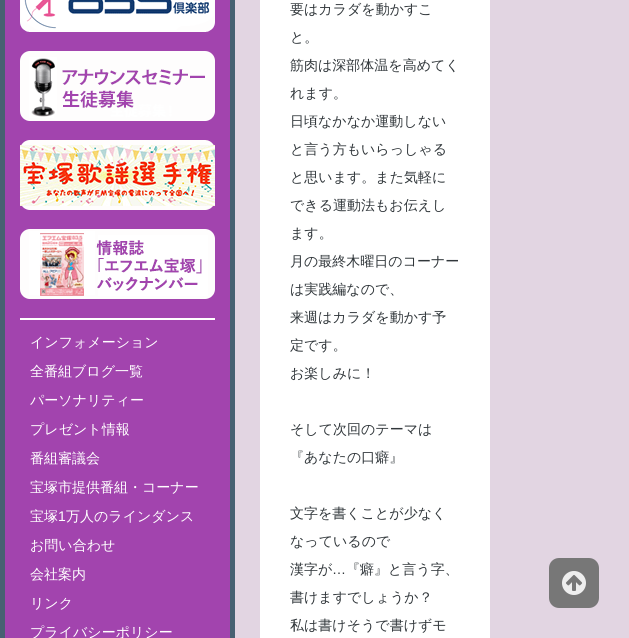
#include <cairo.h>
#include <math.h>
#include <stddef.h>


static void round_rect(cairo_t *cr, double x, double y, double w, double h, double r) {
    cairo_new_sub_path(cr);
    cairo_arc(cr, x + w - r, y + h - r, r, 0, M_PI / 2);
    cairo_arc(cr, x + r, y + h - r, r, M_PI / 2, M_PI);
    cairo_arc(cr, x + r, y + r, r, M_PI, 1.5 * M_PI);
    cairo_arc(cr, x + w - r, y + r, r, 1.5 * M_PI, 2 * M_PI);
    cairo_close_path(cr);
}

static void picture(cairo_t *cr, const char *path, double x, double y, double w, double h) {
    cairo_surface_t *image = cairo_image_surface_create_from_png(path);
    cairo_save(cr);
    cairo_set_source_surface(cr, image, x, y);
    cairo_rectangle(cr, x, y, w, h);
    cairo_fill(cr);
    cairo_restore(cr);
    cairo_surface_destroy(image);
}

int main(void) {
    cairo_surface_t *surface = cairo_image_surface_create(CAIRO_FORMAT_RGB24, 629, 638);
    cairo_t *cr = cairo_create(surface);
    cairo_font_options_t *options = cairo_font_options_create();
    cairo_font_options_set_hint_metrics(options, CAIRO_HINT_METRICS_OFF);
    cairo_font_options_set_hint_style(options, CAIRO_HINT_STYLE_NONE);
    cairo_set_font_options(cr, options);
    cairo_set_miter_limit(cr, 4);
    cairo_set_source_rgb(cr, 0.886, 0.835, 0.886);
    cairo_paint(cr);
    cairo_set_source_rgb(cr, 0.635, 0.267, 0.682);
    cairo_rectangle(cr, 5, 0, 225, 638);
    cairo_fill(cr);
    cairo_set_source_rgb(cr, 0.278, 0.38, 0.447);
    cairo_rectangle(cr, 230, 0, 5, 638);
    cairo_fill(cr);
    cairo_rectangle(cr, 0, 0, 5, 638);
    cairo_fill(cr);
    picture(cr, "img1.png", 20, 0, 195, 32);
    picture(cr, "img2.png", 20, 51, 195, 70);
    picture(cr, "img3.png", 20, 140, 195, 70);
    picture(cr, "img4.png", 20, 229, 195, 70);
    cairo_set_source_rgb(cr, 1, 1, 1);
    cairo_rectangle(cr, 20, 318, 195, 2);
    cairo_fill(cr);
    cairo_select_font_face(cr, "WenQuanYi Zen Hei Medium", CAIRO_FONT_SLANT_NORMAL, CAIRO_FONT_WEIGHT_NORMAL);
    cairo_set_font_size(cr, 14);
    cairo_move_to(cr, 30, 347);
    cairo_show_text(cr, "インフォメーション");
    cairo_move_to(cr, 30, 376);
    cairo_show_text(cr, "全番組ブログ一覧");
    cairo_move_to(cr, 30, 405);
    cairo_show_text(cr, "パーソナリティー");
    cairo_move_to(cr, 30, 434);
    cairo_show_text(cr, "プレゼント情報");
    cairo_move_to(cr, 30, 463);
    cairo_show_text(cr, "番組審議会");
    cairo_move_to(cr, 30, 492);
    cairo_show_text(cr, "宝塚市提供番組・コーナー");
    cairo_move_to(cr, 30, 521);
    cairo_show_text(cr, "宝塚");
    cairo_select_font_face(cr, "Liberation Sans", CAIRO_FONT_SLANT_NORMAL, CAIRO_FONT_WEIGHT_NORMAL);
    cairo_move_to(cr, 58, 521);
    cairo_show_text(cr, "1");
    cairo_select_font_face(cr, "WenQuanYi Zen Hei Medium", CAIRO_FONT_SLANT_NORMAL, CAIRO_FONT_WEIGHT_NORMAL);
    cairo_move_to(cr, 66, 521);
    cairo_show_text(cr, "万人のラインダンス");
    cairo_move_to(cr, 30, 550);
    cairo_show_text(cr, "お問い合わせ");
    cairo_move_to(cr, 30, 579);
    cairo_show_text(cr, "会社案内");
    cairo_move_to(cr, 30, 608);
    cairo_show_text(cr, "リンク");
    cairo_move_to(cr, 30, 637);
    cairo_show_text(cr, "プライバシーポリシー");
    cairo_rectangle(cr, 260, 0, 230, 638);
    cairo_fill(cr);
    cairo_set_source_rgb(cr, 0.192, 0.216, 0.231);
    cairo_move_to(cr, 290, 14);
    cairo_show_text(cr, "要はカラダを動かすこ");
    cairo_move_to(cr, 290, 42);
    cairo_show_text(cr, "と。");
    cairo_move_to(cr, 290, 70);
    cairo_show_text(cr, "筋肉は深部体温を高めてく");
    cairo_move_to(cr, 290, 98);
    cairo_show_text(cr, "れます。");
    cairo_move_to(cr, 290, 126);
    cairo_show_text(cr, "日頃なかなか運動しない");
    cairo_move_to(cr, 290, 154);
    cairo_show_text(cr, "と言う方もいらっしゃる");
    cairo_move_to(cr, 290, 182);
    cairo_show_text(cr, "と思います。また気軽に");
    cairo_move_to(cr, 290, 210);
    cairo_show_text(cr, "できる運動法もお伝えし");
    cairo_move_to(cr, 290, 238);
    cairo_show_text(cr, "ます。");
    cairo_move_to(cr, 290, 266);
    cairo_show_text(cr, "月の最終木曜日のコーナー");
    cairo_move_to(cr, 290, 294);
    cairo_show_text(cr, "は実践編なので、");
    cairo_move_to(cr, 290, 322);
    cairo_show_text(cr, "来週はカラダを動かす予");
    cairo_move_to(cr, 290, 350);
    cairo_show_text(cr, "定です。");
    cairo_move_to(cr, 290, 378);
    cairo_show_text(cr, "お楽しみに！");
    cairo_move_to(cr, 290, 434);
    cairo_show_text(cr, "そして次回のテーマは");
    cairo_move_to(cr, 290, 462);
    cairo_show_text(cr, "『あなたの口癖』");
    cairo_move_to(cr, 290, 518);
    cairo_show_text(cr, "文字を書くことが少なく");
    cairo_move_to(cr, 290, 546);
    cairo_show_text(cr, "なっているので");
    cairo_move_to(cr, 290, 574);
    cairo_show_text(cr, "漢字が");
    cairo_select_font_face(cr, "Liberation Sans", CAIRO_FONT_SLANT_NORMAL, CAIRO_FONT_WEIGHT_NORMAL);
    cairo_move_to(cr, 332, 574);
    cairo_show_text(cr, "…");
    cairo_select_font_face(cr, "WenQuanYi Zen Hei Medium", CAIRO_FONT_SLANT_NORMAL, CAIRO_FONT_WEIGHT_NORMAL);
    cairo_move_to(cr, 346, 574);
    cairo_show_text(cr, "『癖』と言う字、");
    cairo_move_to(cr, 290, 602);
    cairo_show_text(cr, "書けますでしょうか？");
    cairo_move_to(cr, 290, 630);
    cairo_show_text(cr, "私は書けそうで書けずモ");
    cairo_set_source_rgb(cr, 0.467, 0.467, 0.467);
    round_rect(cr, 549, 558, 50, 50, 10);
    cairo_fill(cr);
    picture(cr, "img5.png", 562, 571, 24, 24);
    cairo_surface_write_to_png(surface, "page.png");
    cairo_font_options_destroy(options);
    cairo_destroy(cr);
    cairo_surface_destroy(surface);
    return 0;
}
